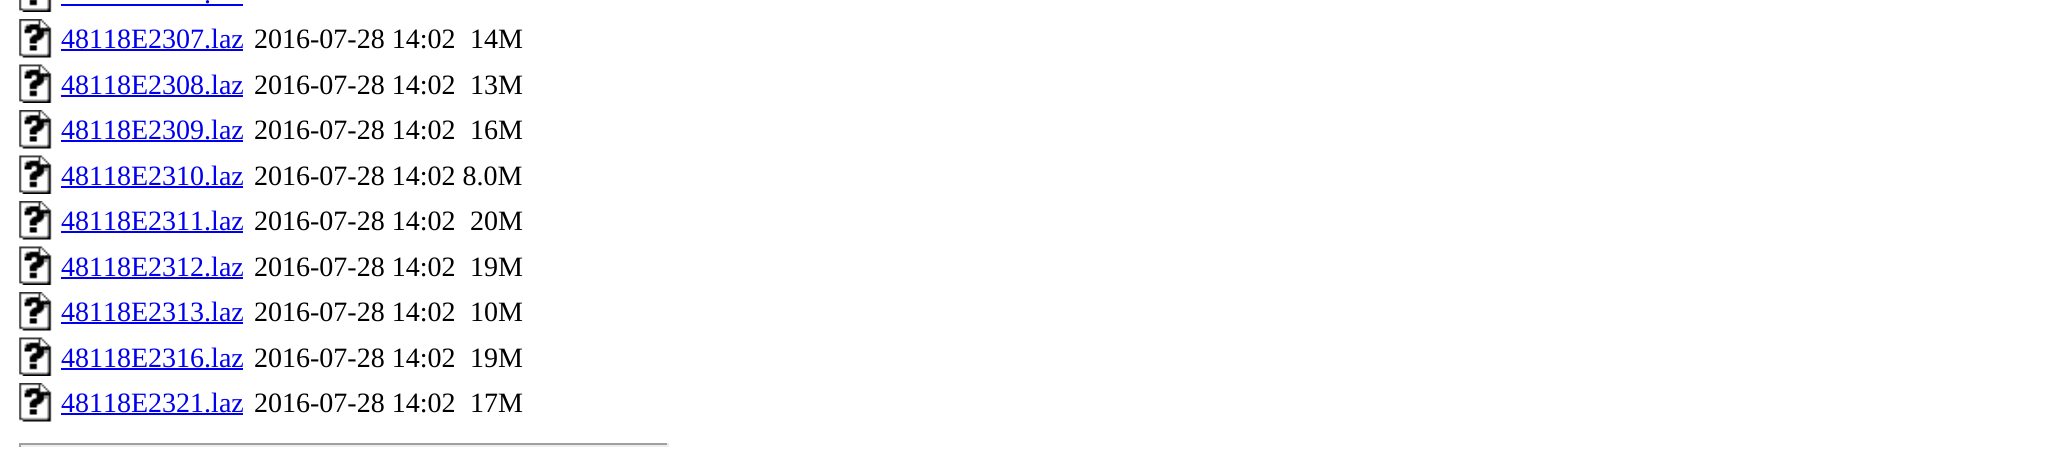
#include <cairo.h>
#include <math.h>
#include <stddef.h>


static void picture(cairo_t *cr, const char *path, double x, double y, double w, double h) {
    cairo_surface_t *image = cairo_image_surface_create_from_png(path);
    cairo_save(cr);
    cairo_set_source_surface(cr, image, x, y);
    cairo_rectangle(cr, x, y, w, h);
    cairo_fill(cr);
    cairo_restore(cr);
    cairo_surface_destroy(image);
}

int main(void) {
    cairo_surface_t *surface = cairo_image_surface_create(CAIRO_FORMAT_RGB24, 2064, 452);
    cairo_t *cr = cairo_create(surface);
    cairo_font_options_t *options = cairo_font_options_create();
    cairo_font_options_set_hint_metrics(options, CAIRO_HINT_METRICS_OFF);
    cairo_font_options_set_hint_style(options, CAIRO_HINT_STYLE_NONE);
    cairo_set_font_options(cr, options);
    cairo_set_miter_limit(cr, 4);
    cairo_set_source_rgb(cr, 1, 1, 1);
    cairo_paint(cr);
    picture(cr, "img1.png", 19, 0, 33, 12);
    cairo_select_font_face(cr, "Liberation Serif", CAIRO_FONT_SLANT_NORMAL, CAIRO_FONT_WEIGHT_NORMAL);
    cairo_set_font_size(cr, 28);
    cairo_set_source_rgb(cr, 0, 0, 0.933);
    cairo_move_to(cr, 204, 3);
    cairo_show_text(cr, ".");
    cairo_rectangle(cr, 61, 4, 182, 2);
    cairo_fill(cr);
    picture(cr, "img2.png", 19, 19, 33, 39);
    cairo_move_to(cr, 61, 48);
    cairo_show_text(cr, "48118E2307.laz");
    cairo_rectangle(cr, 61, 49, 182, 2);
    cairo_fill(cr);
    cairo_set_source_rgb(cr, 0, 0, 0);
    cairo_move_to(cr, 254, 48);
    cairo_show_text(cr, "2016-07-28 14:02");
    cairo_move_to(cr, 470, 48);
    cairo_show_text(cr, "14M");
    picture(cr, "img3.png", 19, 64, 33, 39);
    cairo_set_source_rgb(cr, 0, 0, 0.933);
    cairo_move_to(cr, 61, 94);
    cairo_show_text(cr, "48118E2308.laz");
    cairo_rectangle(cr, 61, 95, 182, 2);
    cairo_fill(cr);
    cairo_set_source_rgb(cr, 0, 0, 0);
    cairo_move_to(cr, 254, 94);
    cairo_show_text(cr, "2016-07-28 14:02");
    cairo_move_to(cr, 470, 94);
    cairo_show_text(cr, "13M");
    picture(cr, "img2.png", 19, 110, 33, 39);
    cairo_set_source_rgb(cr, 0, 0, 0.933);
    cairo_move_to(cr, 61, 139);
    cairo_show_text(cr, "48118E2309.laz");
    cairo_rectangle(cr, 61, 140, 182, 2);
    cairo_fill(cr);
    cairo_set_source_rgb(cr, 0, 0, 0);
    cairo_move_to(cr, 254, 139);
    cairo_show_text(cr, "2016-07-28 14:02");
    cairo_move_to(cr, 470, 139);
    cairo_show_text(cr, "16M");
    picture(cr, "img3.png", 19, 155, 33, 39);
    cairo_set_source_rgb(cr, 0, 0, 0.933);
    cairo_move_to(cr, 61, 185);
    cairo_show_text(cr, "48118E2310.laz");
    cairo_rectangle(cr, 61, 186, 182, 2);
    cairo_fill(cr);
    cairo_set_source_rgb(cr, 0, 0, 0);
    cairo_move_to(cr, 254, 185);
    cairo_show_text(cr, "2016-07-28 14:02 8.0M");
    picture(cr, "img2.png", 19, 201, 33, 39);
    cairo_set_source_rgb(cr, 0, 0, 0.933);
    cairo_move_to(cr, 61, 230);
    cairo_show_text(cr, "48118E2311.laz");
    cairo_rectangle(cr, 61, 231, 182, 2);
    cairo_fill(cr);
    cairo_set_source_rgb(cr, 0, 0, 0);
    cairo_move_to(cr, 254, 230);
    cairo_show_text(cr, "2016-07-28 14:02");
    cairo_move_to(cr, 470, 230);
    cairo_show_text(cr, "20M");
    picture(cr, "img3.png", 19, 246, 33, 39);
    cairo_set_source_rgb(cr, 0, 0, 0.933);
    cairo_move_to(cr, 61, 276);
    cairo_show_text(cr, "48118E2312.laz");
    cairo_rectangle(cr, 61, 277, 182, 2);
    cairo_fill(cr);
    cairo_set_source_rgb(cr, 0, 0, 0);
    cairo_move_to(cr, 254, 276);
    cairo_show_text(cr, "2016-07-28 14:02");
    cairo_move_to(cr, 470, 276);
    cairo_show_text(cr, "19M");
    picture(cr, "img2.png", 19, 292, 33, 39);
    cairo_set_source_rgb(cr, 0, 0, 0.933);
    cairo_move_to(cr, 61, 321);
    cairo_show_text(cr, "48118E2313.laz");
    cairo_rectangle(cr, 61, 322, 182, 2);
    cairo_fill(cr);
    cairo_set_source_rgb(cr, 0, 0, 0);
    cairo_move_to(cr, 254, 321);
    cairo_show_text(cr, "2016-07-28 14:02");
    cairo_move_to(cr, 470, 321);
    cairo_show_text(cr, "10M");
    picture(cr, "img3.png", 19, 337, 33, 39);
    cairo_set_source_rgb(cr, 0, 0, 0.933);
    cairo_move_to(cr, 61, 367);
    cairo_show_text(cr, "48118E2316.laz");
    cairo_rectangle(cr, 61, 368, 182, 2);
    cairo_fill(cr);
    cairo_set_source_rgb(cr, 0, 0, 0);
    cairo_move_to(cr, 254, 367);
    cairo_show_text(cr, "2016-07-28 14:02");
    cairo_move_to(cr, 470, 367);
    cairo_show_text(cr, "19M");
    picture(cr, "img2.png", 19, 383, 33, 39);
    cairo_set_source_rgb(cr, 0, 0, 0.933);
    cairo_move_to(cr, 61, 412);
    cairo_show_text(cr, "48118E2321.laz");
    cairo_rectangle(cr, 61, 413, 182, 2);
    cairo_fill(cr);
    cairo_set_source_rgb(cr, 0, 0, 0);
    cairo_move_to(cr, 254, 412);
    cairo_show_text(cr, "2016-07-28 14:02");
    cairo_move_to(cr, 470, 412);
    cairo_show_text(cr, "17M");
    cairo_set_source_rgb(cr, 0.624, 0.624, 0.624);
    cairo_rectangle(cr, 19, 443, 650, 2);
    cairo_fill(cr);
    cairo_set_source_rgb(cr, 0.933, 0.933, 0.933);
    cairo_rectangle(cr, 667, 443, 2, 4);
    cairo_fill(cr);
    cairo_rectangle(cr, 19, 445, 650, 2);
    cairo_fill(cr);
    cairo_set_source_rgb(cr, 0.624, 0.624, 0.624);
    cairo_rectangle(cr, 19, 443, 2, 4);
    cairo_fill(cr);
    cairo_surface_write_to_png(surface, "page.png");
    cairo_font_options_destroy(options);
    cairo_destroy(cr);
    cairo_surface_destroy(surface);
    return 0;
}
